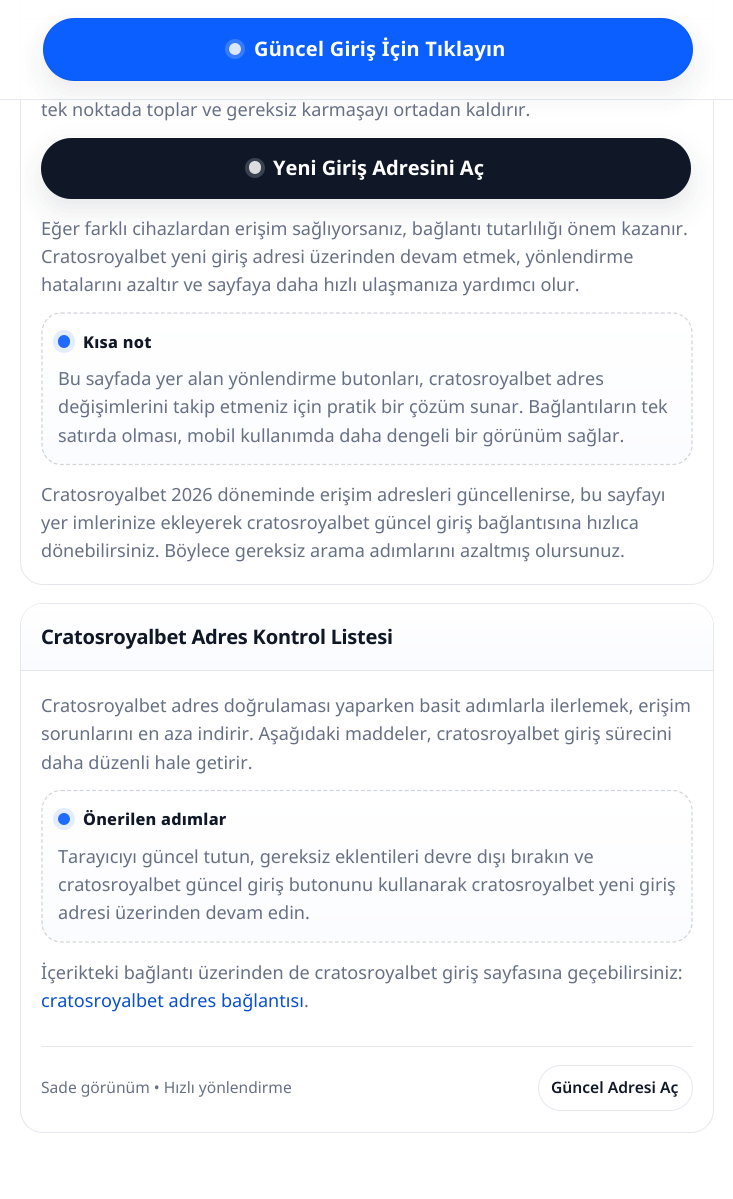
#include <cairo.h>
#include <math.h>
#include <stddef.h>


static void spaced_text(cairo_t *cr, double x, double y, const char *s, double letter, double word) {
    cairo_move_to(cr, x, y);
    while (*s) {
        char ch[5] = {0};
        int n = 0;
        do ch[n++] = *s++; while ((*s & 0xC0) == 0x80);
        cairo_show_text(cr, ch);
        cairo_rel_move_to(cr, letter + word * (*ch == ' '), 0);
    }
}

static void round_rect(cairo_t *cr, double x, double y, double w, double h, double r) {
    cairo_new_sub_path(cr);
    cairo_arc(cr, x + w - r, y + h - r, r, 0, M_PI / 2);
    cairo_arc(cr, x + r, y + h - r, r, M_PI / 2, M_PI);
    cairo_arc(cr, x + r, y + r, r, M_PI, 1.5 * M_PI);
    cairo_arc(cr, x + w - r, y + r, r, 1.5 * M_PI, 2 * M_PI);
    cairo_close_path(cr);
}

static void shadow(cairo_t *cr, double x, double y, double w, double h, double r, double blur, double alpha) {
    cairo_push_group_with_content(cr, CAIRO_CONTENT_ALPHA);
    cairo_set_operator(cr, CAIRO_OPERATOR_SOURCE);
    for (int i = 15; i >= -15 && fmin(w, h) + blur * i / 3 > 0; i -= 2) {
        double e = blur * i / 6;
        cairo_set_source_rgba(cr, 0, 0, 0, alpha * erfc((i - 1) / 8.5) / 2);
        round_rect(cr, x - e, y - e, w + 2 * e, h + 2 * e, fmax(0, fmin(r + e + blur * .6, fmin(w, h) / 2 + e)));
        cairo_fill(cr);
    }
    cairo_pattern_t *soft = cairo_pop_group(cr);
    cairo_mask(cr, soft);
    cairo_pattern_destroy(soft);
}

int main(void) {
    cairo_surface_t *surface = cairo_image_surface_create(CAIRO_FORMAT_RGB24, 733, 1199);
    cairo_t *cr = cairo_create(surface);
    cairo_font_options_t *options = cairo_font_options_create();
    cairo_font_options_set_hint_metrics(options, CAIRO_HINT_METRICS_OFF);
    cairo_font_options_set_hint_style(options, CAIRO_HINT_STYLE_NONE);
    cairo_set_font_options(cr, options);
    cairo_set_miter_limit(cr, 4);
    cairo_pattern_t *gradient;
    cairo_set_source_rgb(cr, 1, 1, 1);
    cairo_paint(cr);
    round_rect(cr, 20.5, -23.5, 693, 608, 22.5);
    cairo_set_source_rgb(cr, 0.902, 0.91, 0.933);
    cairo_set_line_width(cr, 1);
    cairo_stroke(cr);
    gradient = cairo_pattern_create_linear(367, -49, 367, 18);
    cairo_pattern_add_color_stop_rgba(gradient, 0, 1, 1, 1, 1);
    cairo_pattern_add_color_stop_rgba(gradient, 1, 0.98, 0.984, 1, 1);
    cairo_set_source(cr, gradient);
    cairo_pattern_destroy(gradient);
    cairo_rectangle(cr, 21, 0, 692, 18);
    cairo_fill(cr);
    cairo_set_source_rgb(cr, 0.902, 0.91, 0.933);
    cairo_rectangle(cr, 21, 18, 692, 1);
    cairo_fill(cr);
    cairo_set_source_rgba(cr, 1, 1, 1, 0.92);
    cairo_rectangle(cr, 20, 0, 694, 99);
    cairo_fill(cr);
    cairo_set_source_rgb(cr, 0.902, 0.91, 0.933);
    cairo_rectangle(cr, 0, 99, 733, 1);
    cairo_fill(cr);
    cairo_set_source_rgb(cr, 0.063, 0.094, 0.157);
    shadow(cr, 41, 150, 650, 61, 30.5, 14, 0.1);
    cairo_set_source_rgb(cr, 0.063, 0.094, 0.157);
    round_rect(cr, 41, 138, 650, 61, 30.5);
    cairo_fill(cr);
    round_rect(cr, 41.5, 138.5, 649, 60, 30);
    cairo_set_source_rgba(cr, 0.063, 0.094, 0.157, 0.14);
    cairo_stroke(cr);
    cairo_set_source_rgb(cr, 0.063, 0.094, 0.157);
    shadow(cr, 43, 30, 650, 64, 32, 15, 0.08);
    cairo_set_source_rgb(cr, 0.043, 0.373, 1);
    round_rect(cr, 43, 18, 650, 63, 31.5);
    cairo_fill(cr);
    round_rect(cr, 43.5, 18.5, 649, 62, 31);
    cairo_set_source_rgba(cr, 0.063, 0.094, 0.157, 0.08);
    cairo_stroke(cr);
    cairo_arc(cr, 235, 49, 8, 0, 2 * M_PI);
    cairo_set_source_rgb(cr, 0.216, 0.486, 1);
    cairo_set_line_width(cr, 4);
    cairo_stroke(cr);
    cairo_set_source_rgba(cr, 1, 1, 1, 0.85);
    cairo_arc(cr, 235, 49, 6, 0, 2 * M_PI);
    cairo_fill(cr);
    cairo_select_font_face(cr, "Noto Sans", CAIRO_FONT_SLANT_NORMAL, CAIRO_FONT_WEIGHT_BOLD);
    cairo_set_font_size(cr, 20);
    cairo_set_source_rgb(cr, 1, 1, 1);
    spaced_text(cr, 254, 56, "Güncel Giriş İçin Tıklayın", 0.25, 0);
    cairo_select_font_face(cr, "Noto Sans", CAIRO_FONT_SLANT_NORMAL, CAIRO_FONT_WEIGHT_NORMAL);
    cairo_set_font_size(cr, 18.1);
    cairo_set_source_rgb(cr, 0.4, 0.439, 0.522);
    cairo_move_to(cr, 41, 116);
    cairo_show_text(cr, "tek noktada toplar ve gereksiz karmaşayı ortadan kaldırır.");
    cairo_new_path(cr);
    cairo_arc(cr, 255, 168, 8, 0, 2 * M_PI);
    cairo_set_source_rgb(cr, 0.231, 0.259, 0.31);
    cairo_stroke(cr);
    cairo_set_source_rgba(cr, 1, 1, 1, 0.85);
    round_rect(cr, 249, 161, 12, 13, 6);
    cairo_fill(cr);
    cairo_select_font_face(cr, "Noto Sans", CAIRO_FONT_SLANT_NORMAL, CAIRO_FONT_WEIGHT_BOLD);
    cairo_set_font_size(cr, 20);
    cairo_set_source_rgb(cr, 1, 1, 1);
    cairo_move_to(cr, 273, 175);
    cairo_show_text(cr, "Yeni Giriş Adresini Aç");
    cairo_select_font_face(cr, "Noto Sans", CAIRO_FONT_SLANT_NORMAL, CAIRO_FONT_WEIGHT_NORMAL);
    cairo_set_font_size(cr, 18.1);
    cairo_set_source_rgb(cr, 0.4, 0.439, 0.522);
    cairo_move_to(cr, 41, 235);
    cairo_show_text(cr, "Eğer farklı cihazlardan erişim sağlıyorsanız, bağlantı tutarlılığı önem kazanır.");
    cairo_move_to(cr, 41, 263);
    cairo_show_text(cr, "Cratosroyalbet yeni giriş adresi üzerinden devam etmek, yönlendirme");
    cairo_move_to(cr, 41, 291);
    cairo_show_text(cr, "hatalarını azaltır ve sayfaya daha hızlı ulaşmanıza yardımcı olur.");
    cairo_save(cr);
    round_rect(cr, 41, 313, 652, 152, 20);
    cairo_clip(cr);
    gradient = cairo_pattern_create_linear(367, 164, 367, 314);
    cairo_pattern_add_color_stop_rgba(gradient, 0, 1, 1, 1, 1);
    cairo_pattern_add_color_stop_rgba(gradient, 1, 0.984, 0.988, 1, 1);
    cairo_set_source(cr, gradient);
    cairo_pattern_destroy(gradient);
    cairo_rectangle(cr, 55, 313, 624, 1);
    cairo_fill(cr);
    gradient = cairo_pattern_create_linear(367, 314, 367, 464);
    cairo_pattern_add_color_stop_rgba(gradient, 0, 1, 1, 1, 1);
    cairo_pattern_add_color_stop_rgba(gradient, 1, 0.984, 0.988, 1, 1);
    cairo_set_source(cr, gradient);
    cairo_pattern_destroy(gradient);
    cairo_rectangle(cr, 41, 314, 652, 150);
    cairo_fill(cr);
    cairo_restore(cr);
    cairo_new_path(cr);
    cairo_move_to(cr, 61, 313);
    cairo_line_to(cr, 672.5, 313);
    cairo_curve_to(cr, 683, 313, 692, 322, 692, 332.5);
    cairo_line_to(cr, 692, 445);
    cairo_curve_to(cr, 692, 455.5, 683, 464.5, 672.5, 464.5);
    cairo_line_to(cr, 61, 464.5);
    cairo_curve_to(cr, 50.5, 464.5, 42, 455.5, 42, 445);
    cairo_line_to(cr, 42, 332.5);
    cairo_curve_to(cr, 42, 322, 50.5, 313, 61, 313);
    cairo_close_path(cr);
    cairo_set_source_rgba(cr, 0.063, 0.094, 0.157, 0.18);
    cairo_set_line_width(cr, 1.2);
    cairo_set_dash(cr, (double[]){3.75, 2.5}, 2, 0);
    cairo_stroke(cr);
    round_rect(cr, 55.5, 332.5, 17, 18, 8.5);
    cairo_set_source_rgb(cr, 0.89, 0.929, 1);
    cairo_set_line_width(cr, 5);
    cairo_set_dash(cr, NULL, 0, 0);
    cairo_stroke(cr);
    cairo_set_source_rgb(cr, 0.122, 0.42, 1);
    round_rect(cr, 58, 335, 12, 13, 6);
    cairo_fill(cr);
    cairo_select_font_face(cr, "Noto Sans ExtraBold", CAIRO_FONT_SLANT_NORMAL, CAIRO_FONT_WEIGHT_NORMAL);
    cairo_set_font_size(cr, 16.25);
    cairo_set_source_rgb(cr, 0.063, 0.094, 0.157);
    spaced_text(cr, 83, 348, "Kısa not", 0.25, 0);
    cairo_select_font_face(cr, "Noto Sans", CAIRO_FONT_SLANT_NORMAL, CAIRO_FONT_WEIGHT_NORMAL);
    cairo_set_font_size(cr, 18.1);
    cairo_set_source_rgb(cr, 0.4, 0.439, 0.522);
    cairo_move_to(cr, 58, 385);
    cairo_show_text(cr, "Bu sayfada yer alan yönlendirme butonları, cratosroyalbet adres");
    cairo_move_to(cr, 58, 413);
    cairo_show_text(cr, "değişimlerini takip etmeniz için pratik bir çözüm sunar. Bağlantıların tek");
    cairo_move_to(cr, 58, 442);
    cairo_show_text(cr, "satırda olması, mobil kullanımda daha dengeli bir görünüm sağlar.");
    cairo_move_to(cr, 41, 501);
    cairo_show_text(cr, "Cratosroyalbet 2026 döneminde erişim adresleri güncellenirse, bu sayfayı");
    cairo_move_to(cr, 41, 529);
    cairo_show_text(cr, "yer imlerinize ekleyerek cratosroyalbet güncel giriş bağlantısına hızlıca");
    cairo_move_to(cr, 41, 557);
    cairo_show_text(cr, "dönebilirsiniz. Böylece gereksiz arama adımlarını azaltmış olursunuz.");
    round_rect(cr, 20.5, 603.5, 693, 529, 22.5);
    cairo_set_source_rgb(cr, 0.902, 0.91, 0.933);
    cairo_set_line_width(cr, 1);
    cairo_stroke(cr);
    gradient = cairo_pattern_create_linear(367, 604, 367, 670);
    cairo_pattern_add_color_stop_rgba(gradient, 0, 1, 1, 1, 1);
    cairo_pattern_add_color_stop_rgba(gradient, 1, 0.98, 0.984, 1, 1);
    cairo_set_source(cr, gradient);
    cairo_pattern_destroy(gradient);
    cairo_new_path(cr);
    cairo_move_to(cr, 42, 604);
    cairo_line_to(cr, 692, 604);
    cairo_curve_to(cr, 703.5, 604, 713, 613.5, 713, 625);
    cairo_line_to(cr, 713, 670);
    cairo_line_to(cr, 21, 670);
    cairo_line_to(cr, 21, 625);
    cairo_curve_to(cr, 21, 613.5, 30.5, 604, 42, 604);
    cairo_close_path(cr);
    cairo_fill(cr);
    cairo_set_source_rgb(cr, 0.902, 0.91, 0.933);
    cairo_rectangle(cr, 21, 670, 692, 1);
    cairo_fill(cr);
    cairo_select_font_face(cr, "Noto Sans", CAIRO_FONT_SLANT_NORMAL, CAIRO_FONT_WEIGHT_BOLD);
    cairo_set_font_size(cr, 20);
    cairo_set_source_rgb(cr, 0.063, 0.094, 0.157);
    spaced_text(cr, 41, 644, "Cratosroyalbet Adres Kontrol Listesi", -0.25, 0);
    cairo_select_font_face(cr, "Noto Sans", CAIRO_FONT_SLANT_NORMAL, CAIRO_FONT_WEIGHT_NORMAL);
    cairo_set_font_size(cr, 18.1);
    cairo_set_source_rgb(cr, 0.4, 0.439, 0.522);
    cairo_move_to(cr, 41, 712);
    cairo_show_text(cr, "Cratosroyalbet adres doğrulaması yaparken basit adımlarla ilerlemek, erişim");
    cairo_move_to(cr, 41, 740);
    cairo_show_text(cr, "sorunlarını en aza indirir. Aşağıdaki maddeler, cratosroyalbet giriş sürecini");
    cairo_move_to(cr, 41, 769);
    cairo_show_text(cr, "daha düzenli hale getirir.");
    cairo_save(cr);
    round_rect(cr, 41, 790, 652, 153, 20);
    cairo_clip(cr);
    gradient = cairo_pattern_create_linear(367, 641, 367, 791);
    cairo_pattern_add_color_stop_rgba(gradient, 0, 1, 1, 1, 1);
    cairo_pattern_add_color_stop_rgba(gradient, 1, 0.984, 0.988, 1, 1);
    cairo_set_source(cr, gradient);
    cairo_pattern_destroy(gradient);
    cairo_rectangle(cr, 55, 790, 624, 1);
    cairo_fill(cr);
    gradient = cairo_pattern_create_linear(367, 791, 367, 941);
    cairo_pattern_add_color_stop_rgba(gradient, 0, 1, 1, 1, 1);
    cairo_pattern_add_color_stop_rgba(gradient, 1, 0.984, 0.988, 1, 1);
    cairo_set_source(cr, gradient);
    cairo_pattern_destroy(gradient);
    cairo_rectangle(cr, 41, 791, 652, 150);
    cairo_fill(cr);
    cairo_restore(cr);
    cairo_new_path(cr);
    cairo_move_to(cr, 61, 790.5);
    cairo_line_to(cr, 672.5, 790.5);
    cairo_curve_to(cr, 683, 790.5, 692, 799.5, 692, 810);
    cairo_line_to(cr, 692, 922.5);
    cairo_curve_to(cr, 692, 933, 683, 942, 672.5, 942);
    cairo_line_to(cr, 61, 942);
    cairo_curve_to(cr, 50.5, 942, 42, 933, 42, 922.5);
    cairo_line_to(cr, 42, 810);
    cairo_curve_to(cr, 42, 799.5, 50.5, 790.5, 61, 790.5);
    cairo_close_path(cr);
    cairo_set_source_rgba(cr, 0.063, 0.094, 0.157, 0.18);
    cairo_set_line_width(cr, 1.2);
    cairo_set_dash(cr, (double[]){3.75, 2.5}, 2, 0);
    cairo_stroke(cr);
    cairo_arc(cr, 64, 819, 8.5, 0, 2 * M_PI);
    cairo_set_source_rgb(cr, 0.89, 0.929, 1);
    cairo_set_line_width(cr, 5);
    cairo_set_dash(cr, NULL, 0, 0);
    cairo_stroke(cr);
    cairo_set_source_rgb(cr, 0.122, 0.42, 1);
    cairo_arc(cr, 64, 819, 6, 0, 2 * M_PI);
    cairo_fill(cr);
    cairo_select_font_face(cr, "Noto Sans ExtraBold", CAIRO_FONT_SLANT_NORMAL, CAIRO_FONT_WEIGHT_NORMAL);
    cairo_set_font_size(cr, 16.25);
    cairo_set_source_rgb(cr, 0.063, 0.094, 0.157);
    spaced_text(cr, 83, 825, "Önerilen adımlar", 0.25, 0);
    cairo_select_font_face(cr, "Noto Sans", CAIRO_FONT_SLANT_NORMAL, CAIRO_FONT_WEIGHT_NORMAL);
    cairo_set_font_size(cr, 18.1);
    cairo_set_source_rgb(cr, 0.4, 0.439, 0.522);
    cairo_move_to(cr, 58, 863);
    cairo_show_text(cr, "Tarayıcıyı güncel tutun, gereksiz eklentileri devre dışı bırakın ve");
    cairo_move_to(cr, 58, 891);
    cairo_show_text(cr, "cratosroyalbet güncel giriş butonunu kullanarak cratosroyalbet yeni giriş");
    cairo_move_to(cr, 58, 919);
    cairo_show_text(cr, "adresi üzerinden devam edin.");
    cairo_move_to(cr, 41, 979);
    cairo_show_text(cr, "İçerikteki bağlantı üzerinden de cratosroyalbet giriş sayfasına geçebilirsiniz:");
    cairo_set_source_rgb(cr, 0.039, 0.31, 0.82);
    cairo_move_to(cr, 41, 1007);
    cairo_show_text(cr, "cratosroyalbet adres bağlantısı");
    cairo_set_source_rgb(cr, 0.4, 0.439, 0.522);
    cairo_move_to(cr, 304, 1007);
    cairo_show_text(cr, ".");
    cairo_set_source_rgb(cr, 0.902, 0.91, 0.933);
    cairo_rectangle(cr, 41, 1046, 652, 1);
    cairo_fill(cr);
    cairo_set_font_size(cr, 15.6);
    cairo_set_source_rgb(cr, 0.4, 0.439, 0.522);
    cairo_move_to(cr, 41, 1093);
    cairo_show_text(cr, "Sade görünüm • Hızlı yönlendirme");
    round_rect(cr, 538.5, 1065.5, 154, 45, 22.5);
    cairo_set_source_rgb(cr, 0.902, 0.91, 0.933);
    cairo_set_line_width(cr, 1);
    cairo_stroke(cr);
    cairo_select_font_face(cr, "Noto Sans SemiBold", CAIRO_FONT_SLANT_NORMAL, CAIRO_FONT_WEIGHT_NORMAL);
    cairo_set_source_rgb(cr, 0.063, 0.094, 0.157);
    cairo_move_to(cr, 551, 1093);
    cairo_show_text(cr, "Güncel Adresi Aç");
    cairo_surface_write_to_png(surface, "page.png");
    cairo_font_options_destroy(options);
    cairo_destroy(cr);
    cairo_surface_destroy(surface);
    return 0;
}
